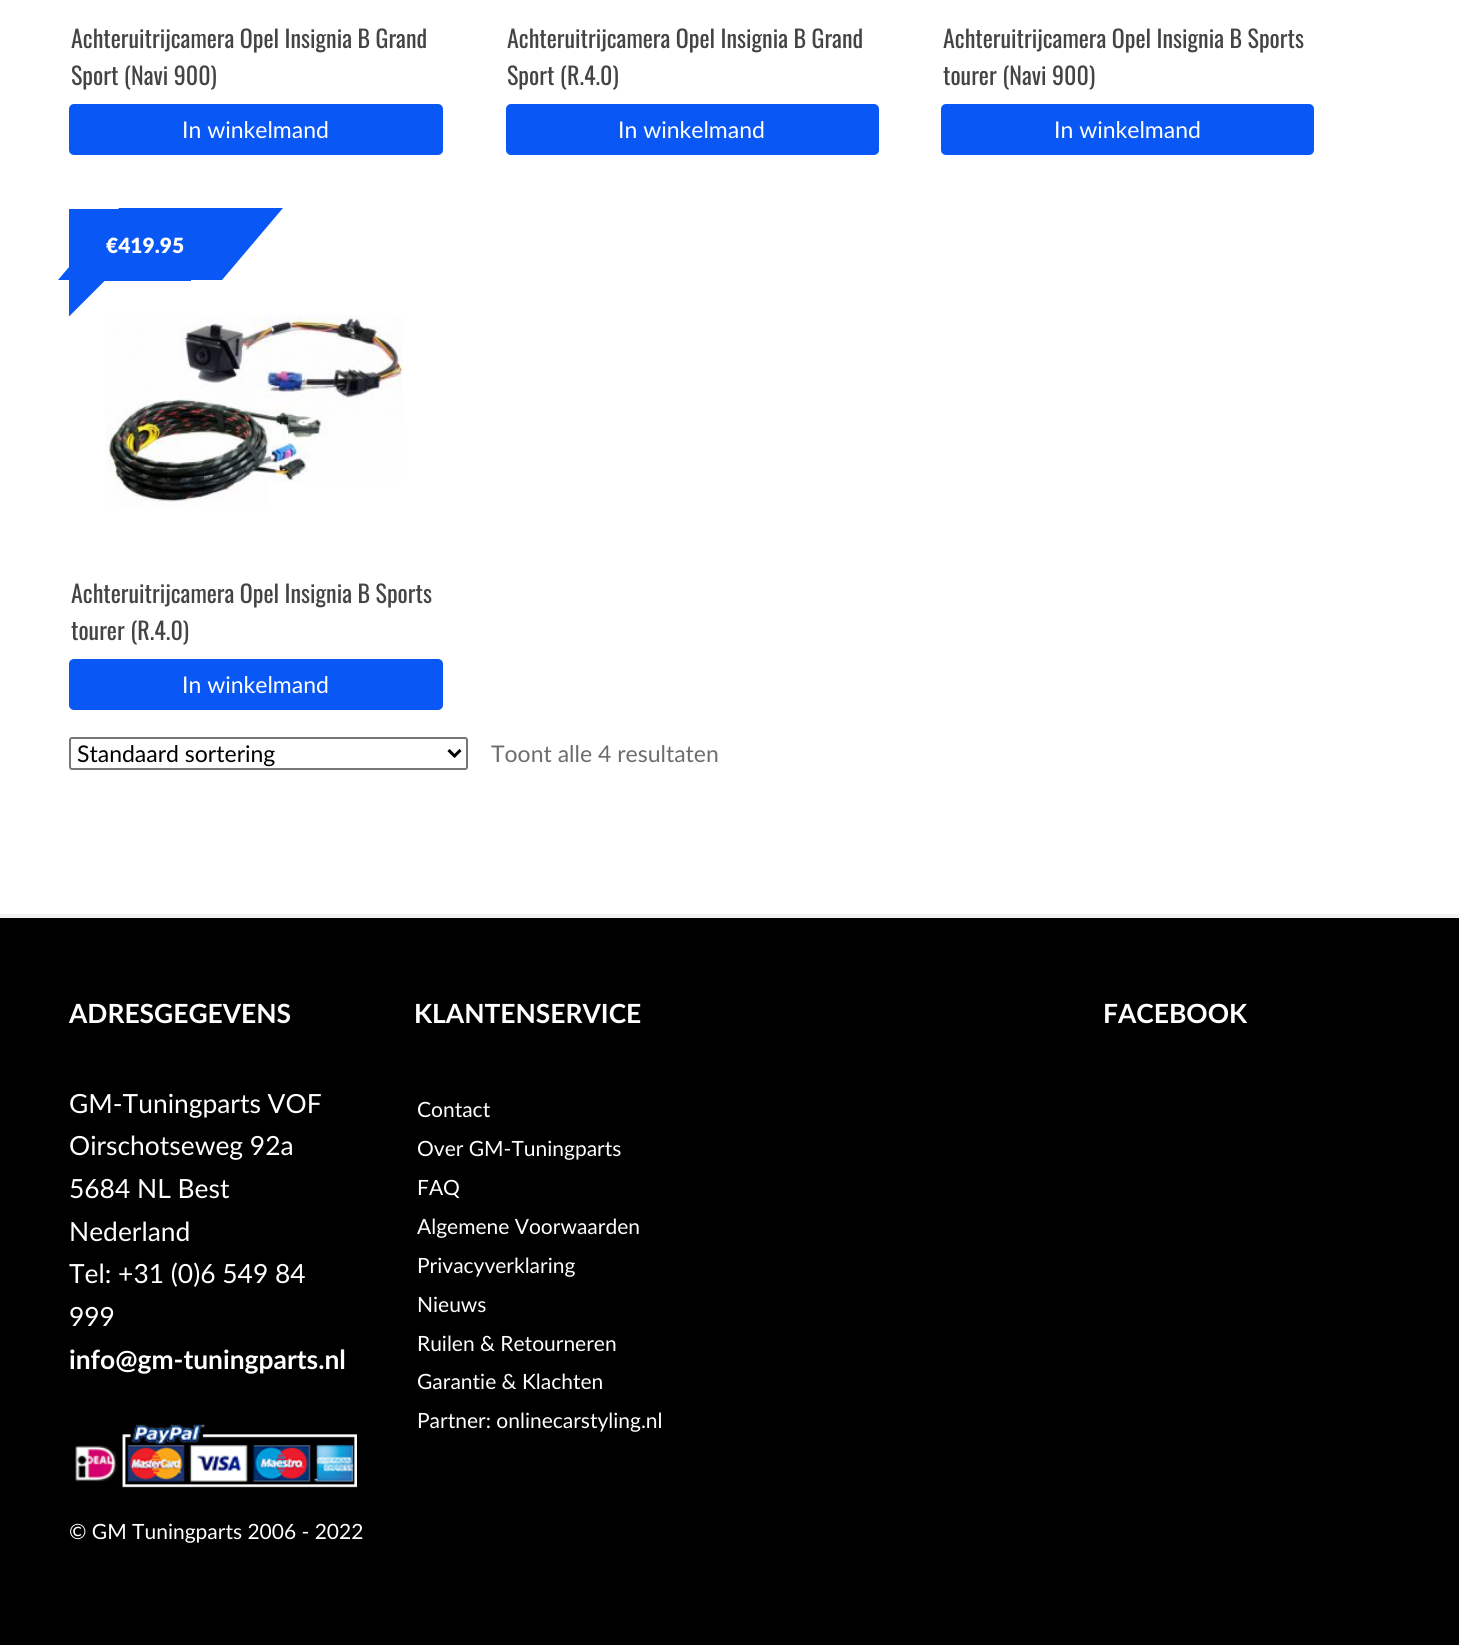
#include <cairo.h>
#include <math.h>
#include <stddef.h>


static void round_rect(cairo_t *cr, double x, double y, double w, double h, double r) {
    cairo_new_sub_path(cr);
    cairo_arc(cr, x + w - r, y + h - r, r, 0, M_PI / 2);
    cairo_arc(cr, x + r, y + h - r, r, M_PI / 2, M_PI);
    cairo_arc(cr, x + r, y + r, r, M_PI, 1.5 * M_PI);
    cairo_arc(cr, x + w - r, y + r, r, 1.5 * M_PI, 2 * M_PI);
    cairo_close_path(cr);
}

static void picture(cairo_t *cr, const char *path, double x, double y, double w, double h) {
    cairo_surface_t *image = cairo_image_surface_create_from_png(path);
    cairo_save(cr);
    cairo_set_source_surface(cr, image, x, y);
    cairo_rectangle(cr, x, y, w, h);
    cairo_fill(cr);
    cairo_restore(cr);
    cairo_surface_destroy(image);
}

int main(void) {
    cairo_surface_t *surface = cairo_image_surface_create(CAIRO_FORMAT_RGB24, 1459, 1645);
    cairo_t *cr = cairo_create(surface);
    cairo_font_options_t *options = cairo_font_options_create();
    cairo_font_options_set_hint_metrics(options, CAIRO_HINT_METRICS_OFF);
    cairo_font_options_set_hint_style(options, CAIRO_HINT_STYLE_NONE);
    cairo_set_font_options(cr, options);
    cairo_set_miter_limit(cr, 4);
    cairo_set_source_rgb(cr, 1, 1, 1);
    cairo_paint(cr);
    cairo_select_font_face(cr, "Oswald", CAIRO_FONT_SLANT_NORMAL, CAIRO_FONT_WEIGHT_NORMAL);
    cairo_set_font_size(cr, 24);
    cairo_set_source_rgb(cr, 0.267, 0.267, 0.267);
    cairo_move_to(cr, 71, 48);
    cairo_show_text(cr, "Achteruitrijcamera Opel Insignia B Grand");
    cairo_move_to(cr, 71, 85);
    cairo_show_text(cr, "Sport (Navi 900)");
    cairo_set_source_rgb(cr, 0.039, 0.345, 0.961);
    round_rect(cr, 69, 104, 374, 51, 5);
    cairo_fill(cr);
    cairo_select_font_face(cr, "Lato", CAIRO_FONT_SLANT_NORMAL, CAIRO_FONT_WEIGHT_NORMAL);
    cairo_set_font_size(cr, 23);
    cairo_set_source_rgb(cr, 1, 1, 1);
    cairo_move_to(cr, 182, 138);
    cairo_show_text(cr, "In winkelmand");
    cairo_select_font_face(cr, "Oswald", CAIRO_FONT_SLANT_NORMAL, CAIRO_FONT_WEIGHT_NORMAL);
    cairo_set_font_size(cr, 24);
    cairo_set_source_rgb(cr, 0.267, 0.267, 0.267);
    cairo_move_to(cr, 507, 48);
    cairo_show_text(cr, "Achteruitrijcamera Opel Insignia B Grand");
    cairo_move_to(cr, 507, 85);
    cairo_show_text(cr, "Sport (R.4.0)");
    cairo_set_source_rgb(cr, 0.039, 0.345, 0.961);
    round_rect(cr, 506, 104, 373, 51, 5);
    cairo_fill(cr);
    cairo_select_font_face(cr, "Lato", CAIRO_FONT_SLANT_NORMAL, CAIRO_FONT_WEIGHT_NORMAL);
    cairo_set_font_size(cr, 23);
    cairo_set_source_rgb(cr, 1, 1, 1);
    cairo_move_to(cr, 618, 138);
    cairo_show_text(cr, "In winkelmand");
    cairo_select_font_face(cr, "Oswald", CAIRO_FONT_SLANT_NORMAL, CAIRO_FONT_WEIGHT_NORMAL);
    cairo_set_font_size(cr, 24);
    cairo_set_source_rgb(cr, 0.267, 0.267, 0.267);
    cairo_move_to(cr, 943, 48);
    cairo_show_text(cr, "Achteruitrijcamera Opel Insignia B Sports");
    cairo_move_to(cr, 943, 85);
    cairo_show_text(cr, "tourer (Navi 900)");
    cairo_set_source_rgb(cr, 0.039, 0.345, 0.961);
    round_rect(cr, 941, 104, 373, 51, 5);
    cairo_fill(cr);
    cairo_select_font_face(cr, "Lato", CAIRO_FONT_SLANT_NORMAL, CAIRO_FONT_WEIGHT_NORMAL);
    cairo_set_font_size(cr, 23);
    cairo_set_source_rgb(cr, 1, 1, 1);
    cairo_move_to(cr, 1054, 138);
    cairo_show_text(cr, "In winkelmand");
    cairo_set_source_rgb(cr, 0.039, 0.345, 0.961);
    cairo_rectangle(cr, 69, 209, 122, 72);
    cairo_fill(cr);
    cairo_new_path(cr);
    cairo_move_to(cr, 119, 208);
    cairo_line_to(cr, 283, 208);
    cairo_line_to(cr, 222, 280);
    cairo_line_to(cr, 58, 280);
    cairo_close_path(cr);
    cairo_fill(cr);
    cairo_select_font_face(cr, "Lato ExtraBold", CAIRO_FONT_SLANT_NORMAL, CAIRO_FONT_WEIGHT_NORMAL);
    cairo_set_font_size(cr, 21);
    cairo_set_source_rgb(cr, 1, 1, 1);
    cairo_move_to(cr, 106, 253);
    cairo_show_text(cr, "€419.95");
    cairo_set_source_rgb(cr, 0.039, 0.345, 0.961);
    cairo_new_path(cr);
    cairo_move_to(cr, 69, 316.5);
    cairo_line_to(cr, 69, 280.5);
    cairo_line_to(cr, 105, 280.5);
    cairo_close_path(cr);
    cairo_fill(cr);
    picture(cr, "img1.png", 105, 315, 298, 192);
    cairo_select_font_face(cr, "Oswald", CAIRO_FONT_SLANT_NORMAL, CAIRO_FONT_WEIGHT_NORMAL);
    cairo_set_font_size(cr, 24);
    cairo_set_source_rgb(cr, 0.267, 0.267, 0.267);
    cairo_move_to(cr, 71, 603);
    cairo_show_text(cr, "Achteruitrijcamera Opel Insignia B Sports");
    cairo_move_to(cr, 71, 640);
    cairo_show_text(cr, "tourer (R.4.0)");
    cairo_set_source_rgb(cr, 0.039, 0.345, 0.961);
    round_rect(cr, 69, 659, 374, 51, 5);
    cairo_fill(cr);
    cairo_select_font_face(cr, "Lato", CAIRO_FONT_SLANT_NORMAL, CAIRO_FONT_WEIGHT_NORMAL);
    cairo_set_font_size(cr, 23);
    cairo_set_source_rgb(cr, 1, 1, 1);
    cairo_move_to(cr, 182, 693);
    cairo_show_text(cr, "In winkelmand");
    round_rect(cr, 70, 738, 397, 31, 2);
    cairo_set_source_rgb(cr, 0.463, 0.463, 0.463);
    cairo_stroke(cr);
    cairo_new_path(cr);
    cairo_move_to(cr, 448.5, 750);
    cairo_line_to(cr, 454.5, 756);
    cairo_line_to(cr, 460.5, 750);
    cairo_set_source_rgb(cr, 0, 0, 0);
    cairo_set_line_width(cr, 3);
    cairo_stroke(cr);
    cairo_move_to(cr, 77, 762);
    cairo_show_text(cr, "Standaard sortering");
    cairo_set_source_rgb(cr, 0.427, 0.427, 0.427);
    cairo_move_to(cr, 491, 762);
    cairo_show_text(cr, "Toont alle 4 resultaten");
    cairo_rectangle(cr, -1.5, 916.5, 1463, 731);
    cairo_set_source_rgb(cr, 0.949, 0.949, 0.949);
    cairo_set_line_width(cr, 5);
    cairo_stroke(cr);
    cairo_set_source_rgb(cr, 0, 0, 0);
    cairo_rectangle(cr, 0, 918, 1459, 727);
    cairo_fill(cr);
    cairo_select_font_face(cr, "Lato", CAIRO_FONT_SLANT_NORMAL, CAIRO_FONT_WEIGHT_BOLD);
    cairo_set_font_size(cr, 26.4);
    cairo_set_source_rgb(cr, 1, 1, 1);
    cairo_move_to(cr, 69, 1023);
    cairo_show_text(cr, "ADRESGEGEVENS");
    cairo_select_font_face(cr, "Lato", CAIRO_FONT_SLANT_NORMAL, CAIRO_FONT_WEIGHT_NORMAL);
    cairo_move_to(cr, 69, 1113);
    cairo_show_text(cr, "GM-Tuningparts VOF");
    cairo_move_to(cr, 69, 1155);
    cairo_show_text(cr, "Oirschotseweg 92a");
    cairo_move_to(cr, 69, 1198);
    cairo_show_text(cr, "5684 NL Best");
    cairo_move_to(cr, 69, 1241);
    cairo_show_text(cr, "Nederland");
    cairo_move_to(cr, 69, 1283);
    cairo_show_text(cr, "Tel: +31 (0)6 549 84");
    cairo_move_to(cr, 69, 1326);
    cairo_show_text(cr, "999");
    cairo_select_font_face(cr, "Lato", CAIRO_FONT_SLANT_NORMAL, CAIRO_FONT_WEIGHT_BOLD);
    cairo_move_to(cr, 69, 1369);
    cairo_show_text(cr, "info@gm-tuningparts.nl");
    picture(cr, "img2.png", 75, 1424, 282, 64);
    cairo_move_to(cr, 414, 1023);
    cairo_show_text(cr, "KLANTENSERVICE");
    cairo_select_font_face(cr, "Lato", CAIRO_FONT_SLANT_NORMAL, CAIRO_FONT_WEIGHT_NORMAL);
    cairo_set_font_size(cr, 21);
    cairo_move_to(cr, 417, 1117);
    cairo_show_text(cr, "Contact");
    cairo_move_to(cr, 417, 1156);
    cairo_show_text(cr, "Over GM-Tuningparts");
    cairo_move_to(cr, 417, 1195);
    cairo_show_text(cr, "FAQ");
    cairo_move_to(cr, 417, 1234);
    cairo_show_text(cr, "Algemene Voorwaarden");
    cairo_move_to(cr, 417, 1273);
    cairo_show_text(cr, "Privacyverklaring");
    cairo_move_to(cr, 417, 1312);
    cairo_show_text(cr, "Nieuws");
    cairo_move_to(cr, 417, 1351);
    cairo_show_text(cr, "Ruilen & Retourneren");
    cairo_move_to(cr, 417, 1389);
    cairo_show_text(cr, "Garantie & Klachten");
    cairo_move_to(cr, 417, 1428);
    cairo_show_text(cr, "Partner: onlinecarstyling.nl");
    cairo_select_font_face(cr, "Lato", CAIRO_FONT_SLANT_NORMAL, CAIRO_FONT_WEIGHT_BOLD);
    cairo_set_font_size(cr, 26.4);
    cairo_move_to(cr, 1103, 1023);
    cairo_show_text(cr, "FACEBOOK");
    cairo_select_font_face(cr, "Lato", CAIRO_FONT_SLANT_NORMAL, CAIRO_FONT_WEIGHT_NORMAL);
    cairo_set_font_size(cr, 21);
    cairo_move_to(cr, 69, 1539);
    cairo_show_text(cr, "© GM Tuningparts 2006 - 2022");
    cairo_surface_write_to_png(surface, "page.png");
    cairo_font_options_destroy(options);
    cairo_destroy(cr);
    cairo_surface_destroy(surface);
    return 0;
}
